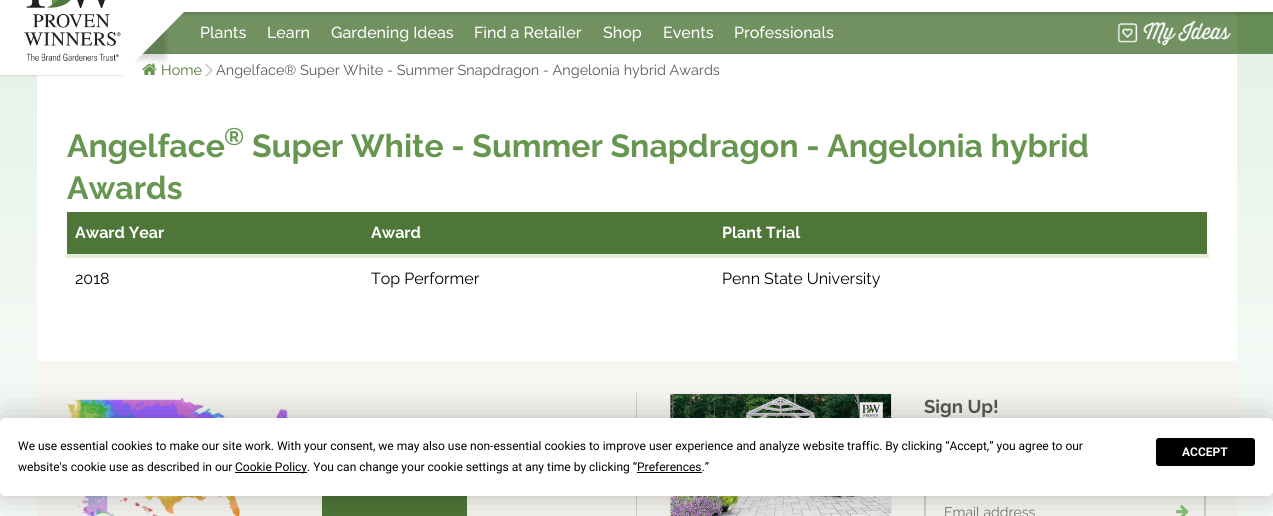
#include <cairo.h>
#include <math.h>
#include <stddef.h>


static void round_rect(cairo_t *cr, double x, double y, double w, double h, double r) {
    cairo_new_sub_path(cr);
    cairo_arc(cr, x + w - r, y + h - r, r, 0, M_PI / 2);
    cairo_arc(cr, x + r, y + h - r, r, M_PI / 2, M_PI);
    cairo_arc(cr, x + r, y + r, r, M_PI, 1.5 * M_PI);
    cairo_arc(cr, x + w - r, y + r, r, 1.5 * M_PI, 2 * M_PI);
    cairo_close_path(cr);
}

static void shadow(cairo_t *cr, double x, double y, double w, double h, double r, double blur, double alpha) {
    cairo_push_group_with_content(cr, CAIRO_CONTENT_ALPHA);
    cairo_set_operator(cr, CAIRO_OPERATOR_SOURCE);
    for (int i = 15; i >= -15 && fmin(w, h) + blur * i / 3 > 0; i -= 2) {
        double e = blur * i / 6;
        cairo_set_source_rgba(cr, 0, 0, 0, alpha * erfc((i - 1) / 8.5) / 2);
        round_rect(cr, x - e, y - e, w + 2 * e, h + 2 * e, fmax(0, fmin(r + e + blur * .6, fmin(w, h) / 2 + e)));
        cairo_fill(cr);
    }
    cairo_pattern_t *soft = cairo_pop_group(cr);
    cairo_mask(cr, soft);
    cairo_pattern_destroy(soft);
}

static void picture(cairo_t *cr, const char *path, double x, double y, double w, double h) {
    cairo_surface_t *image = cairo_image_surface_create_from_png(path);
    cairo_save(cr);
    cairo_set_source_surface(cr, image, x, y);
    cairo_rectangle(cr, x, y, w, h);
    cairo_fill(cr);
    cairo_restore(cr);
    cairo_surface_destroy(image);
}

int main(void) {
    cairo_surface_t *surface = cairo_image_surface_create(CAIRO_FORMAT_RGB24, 1273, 516);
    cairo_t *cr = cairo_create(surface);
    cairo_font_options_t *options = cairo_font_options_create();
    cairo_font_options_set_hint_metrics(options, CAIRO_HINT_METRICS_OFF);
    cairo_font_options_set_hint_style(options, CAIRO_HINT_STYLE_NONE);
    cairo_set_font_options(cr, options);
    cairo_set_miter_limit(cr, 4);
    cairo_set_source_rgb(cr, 1, 1, 1);
    cairo_paint(cr);
    picture(cr, "img1.png", 0, 75, 37, 441);
    cairo_save(cr);
    cairo_rectangle(cr, 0, 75, 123, 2);
    cairo_clip(cr);
    cairo_set_source_rgb(cr, 0.788, 0.788, 0.788);
    shadow(cr, -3, -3, 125, 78, 0, 1, 1);
    cairo_restore(cr);
    picture(cr, "img3.png", 142, 12, 1095, 42);
    cairo_set_source_rgb(cr, 0, 0, 0);
    shadow(cr, 66, -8, 100, 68, 0, 2.5, 0.14);
    cairo_save(cr);
    cairo_rectangle(cr, 22, 0, 167, 75);
    cairo_clip(cr);
    cairo_set_source_rgb(cr, 1, 1, 1);
    cairo_new_path(cr);
    cairo_move_to(cr, 114, -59);
    cairo_line_to(cr, 184, 12);
    cairo_line_to(cr, 114, 83);
    cairo_line_to(cr, 43, 12);
    cairo_close_path(cr);
    cairo_fill(cr);
    cairo_restore(cr);
    picture(cr, "img2.png", 24, 0, 97, 63);
    cairo_select_font_face(cr, "Raleway Medium", CAIRO_FONT_SLANT_NORMAL, CAIRO_FONT_WEIGHT_NORMAL);
    cairo_set_font_size(cr, 16);
    cairo_set_source_rgb(cr, 1, 1, 1);
    cairo_move_to(cr, 200, 38);
    cairo_show_text(cr, "Plants");
    cairo_move_to(cr, 267, 38);
    cairo_show_text(cr, "Learn");
    cairo_move_to(cr, 331, 38);
    cairo_show_text(cr, "Gardening Ideas");
    cairo_move_to(cr, 474, 38);
    cairo_show_text(cr, "Find a Retailer");
    cairo_move_to(cr, 603, 38);
    cairo_show_text(cr, "Shop");
    cairo_move_to(cr, 663, 38);
    cairo_show_text(cr, "Events");
    cairo_move_to(cr, 734, 38);
    cairo_show_text(cr, "Professionals");
    picture(cr, "img4.png", 1117, 20, 114, 26);
    picture(cr, "img5.png", 142, 63, 15, 12);
    cairo_select_font_face(cr, "Raleway", CAIRO_FONT_SLANT_NORMAL, CAIRO_FONT_WEIGHT_NORMAL);
    cairo_set_font_size(cr, 14.4);
    cairo_set_source_rgb(cr, 0.306, 0.463, 0.224);
    cairo_move_to(cr, 161, 75);
    cairo_show_text(cr, "Home");
    picture(cr, "img6.png", 205, 63, 8, 14);
    cairo_set_source_rgb(cr, 0.353, 0.349, 0.325);
    cairo_move_to(cr, 216, 75);
    cairo_show_text(cr, "Angelface® Super White - Summer Snapdragon - Angelonia hybrid Awards");
    cairo_select_font_face(cr, "Raleway", CAIRO_FONT_SLANT_NORMAL, CAIRO_FONT_WEIGHT_BOLD);
    cairo_set_font_size(cr, 32);
    cairo_set_source_rgb(cr, 0.404, 0.588, 0.314);
    cairo_move_to(cr, 67, 157);
    cairo_show_text(cr, "Angelface");
    cairo_set_font_size(cr, 24);
    cairo_move_to(cr, 224, 145);
    cairo_show_text(cr, "®");
    cairo_set_font_size(cr, 32);
    cairo_move_to(cr, 252, 157);
    cairo_show_text(cr, "Super White - Summer Snapdragon - Angelonia hybrid");
    cairo_move_to(cr, 67, 199);
    cairo_show_text(cr, "Awards");
    cairo_set_source_rgb(cr, 0.886, 0.937, 0.835);
    cairo_rectangle(cr, 65, 254, 1144, 4);
    cairo_fill(cr);
    cairo_set_source_rgb(cr, 0.306, 0.463, 0.224);
    cairo_rectangle(cr, 67, 212, 1140, 42);
    cairo_fill(cr);
    cairo_set_font_size(cr, 16);
    cairo_set_source_rgb(cr, 1, 1, 1);
    cairo_move_to(cr, 75, 238);
    cairo_show_text(cr, "Award Year");
    cairo_move_to(cr, 371, 238);
    cairo_show_text(cr, "Award");
    cairo_move_to(cr, 722, 238);
    cairo_show_text(cr, "Plant Trial");
    cairo_select_font_face(cr, "Raleway", CAIRO_FONT_SLANT_NORMAL, CAIRO_FONT_WEIGHT_NORMAL);
    cairo_set_source_rgb(cr, 0, 0, 0);
    cairo_move_to(cr, 75, 284);
    cairo_show_text(cr, "2018");
    cairo_move_to(cr, 371, 284);
    cairo_show_text(cr, "Top Performer");
    cairo_move_to(cr, 722, 284);
    cairo_show_text(cr, "Penn State University");
    cairo_set_source_rgb(cr, 0.969, 0.961, 0.949);
    cairo_rectangle(cr, 37, 361, 1200, 155);
    cairo_fill(cr);
    picture(cr, "img7.png", 67, 398, 221, 118);
    cairo_set_source_rgb(cr, 0.306, 0.463, 0.224);
    cairo_rectangle(cr, 323, 496, 143, 20);
    cairo_fill(cr);
    cairo_rectangle(cr, 322.5, 491.5, 144, 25);
    cairo_set_line_width(cr, 1);
    cairo_stroke(cr);
    cairo_set_source_rgb(cr, 0.816, 0.816, 0.804);
    cairo_rectangle(cr, 636, 393, 1, 123);
    cairo_fill(cr);
    picture(cr, "img8.png", 670, 393, 222, 123);
    cairo_select_font_face(cr, "Raleway", CAIRO_FONT_SLANT_NORMAL, CAIRO_FONT_WEIGHT_BOLD);
    cairo_set_font_size(cr, 18.5);
    cairo_set_source_rgb(cr, 0.353, 0.349, 0.325);
    cairo_move_to(cr, 924, 413);
    cairo_show_text(cr, "Sign Up!");
    cairo_rectangle(cr, 925, 489, 280, 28);
    cairo_set_source_rgb(cr, 0.816, 0.816, 0.804);
    cairo_set_line_width(cr, 2);
    cairo_stroke(cr);
    cairo_select_font_face(cr, "Raleway", CAIRO_FONT_SLANT_NORMAL, CAIRO_FONT_WEIGHT_NORMAL);
    cairo_set_font_size(cr, 14);
    cairo_set_source_rgb(cr, 0.459, 0.459, 0.459);
    cairo_move_to(cr, 944, 517);
    cairo_show_text(cr, "Email address");
    picture(cr, "img9.png", 1176, 505, 13, 11);
    picture(cr, "img10.png", 1237, 12, 36, 504);
    cairo_set_source_rgb(cr, 0, 0, 0);
    shadow(cr, 0, 418, 1273, 78, 5, 17.5, 0.25);
    cairo_set_source_rgb(cr, 1, 1, 1);
    round_rect(cr, 0, 418, 1273, 78, 5);
    cairo_fill(cr);
    cairo_select_font_face(cr, "Roboto", CAIRO_FONT_SLANT_NORMAL, CAIRO_FONT_WEIGHT_NORMAL);
    cairo_set_font_size(cr, 12);
    cairo_set_source_rgb(cr, 0, 0, 0);
    cairo_move_to(cr, 18, 450);
    cairo_show_text(cr, "We use essential cookies to make our site work. With your consent, we may also use non-essential cookies to improve user experience and analyze website traffic. By clicking “Accept,” you agree to our");
    cairo_move_to(cr, 18, 471);
    cairo_show_text(cr, "website's cookie use as described in our");
    cairo_rectangle(cr, 235, 472, 72, 1);
    cairo_fill(cr);
    cairo_move_to(cr, 235, 471);
    cairo_show_text(cr, "Cookie Policy. You can change your cookie settings at any time by clicking “Preferences.”");
    cairo_rectangle(cr, 637, 472, 65, 1);
    cairo_fill(cr);
    round_rect(cr, 1156.5, 438.5, 98, 27, 2.5);
    cairo_fill_preserve(cr);
    cairo_set_line_width(cr, 1);
    cairo_stroke(cr);
    cairo_select_font_face(cr, "Roboto", CAIRO_FONT_SLANT_NORMAL, CAIRO_FONT_WEIGHT_BOLD);
    cairo_set_source_rgb(cr, 1, 1, 1);
    cairo_move_to(cr, 1182, 456);
    cairo_show_text(cr, "ACCEPT");
    cairo_surface_write_to_png(surface, "page.png");
    cairo_font_options_destroy(options);
    cairo_destroy(cr);
    cairo_surface_destroy(surface);
    return 0;
}
